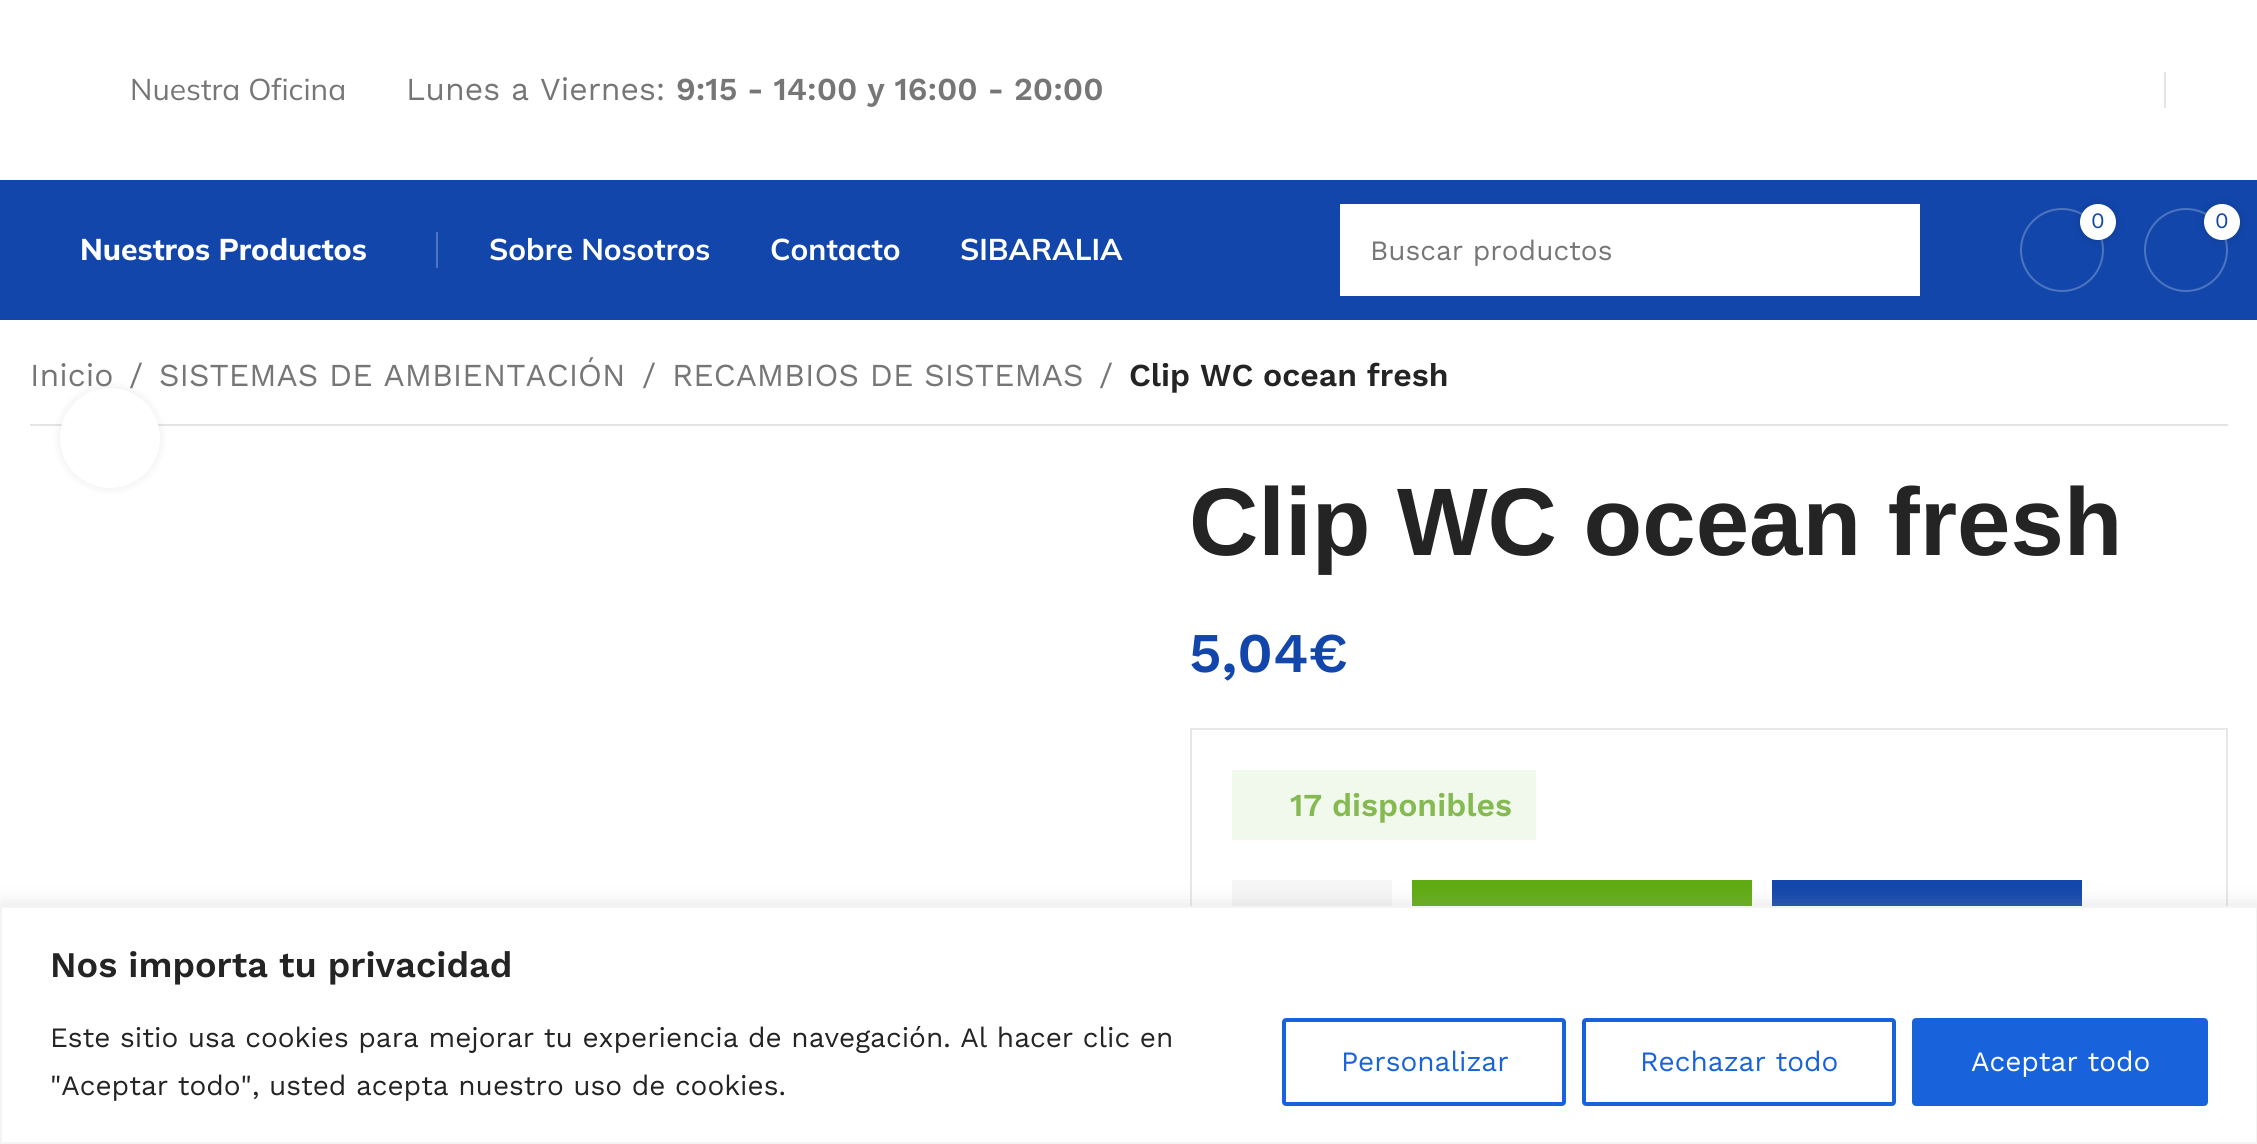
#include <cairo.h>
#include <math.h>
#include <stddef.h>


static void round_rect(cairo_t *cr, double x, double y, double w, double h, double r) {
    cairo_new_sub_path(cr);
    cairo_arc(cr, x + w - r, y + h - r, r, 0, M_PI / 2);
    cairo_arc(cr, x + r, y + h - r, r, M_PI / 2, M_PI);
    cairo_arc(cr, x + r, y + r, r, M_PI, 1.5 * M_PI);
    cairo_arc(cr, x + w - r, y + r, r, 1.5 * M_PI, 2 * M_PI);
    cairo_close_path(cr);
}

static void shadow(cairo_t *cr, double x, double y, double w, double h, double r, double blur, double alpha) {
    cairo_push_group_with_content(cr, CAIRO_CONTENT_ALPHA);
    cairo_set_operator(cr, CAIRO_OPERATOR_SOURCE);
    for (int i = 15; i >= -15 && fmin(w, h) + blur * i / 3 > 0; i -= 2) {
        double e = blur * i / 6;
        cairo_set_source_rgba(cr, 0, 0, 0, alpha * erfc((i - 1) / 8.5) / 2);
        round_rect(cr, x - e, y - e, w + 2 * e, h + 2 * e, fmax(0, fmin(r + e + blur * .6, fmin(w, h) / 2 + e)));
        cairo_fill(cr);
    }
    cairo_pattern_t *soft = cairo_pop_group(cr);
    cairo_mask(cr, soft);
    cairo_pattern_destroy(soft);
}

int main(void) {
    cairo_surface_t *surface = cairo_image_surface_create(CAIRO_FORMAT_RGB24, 2257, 1144);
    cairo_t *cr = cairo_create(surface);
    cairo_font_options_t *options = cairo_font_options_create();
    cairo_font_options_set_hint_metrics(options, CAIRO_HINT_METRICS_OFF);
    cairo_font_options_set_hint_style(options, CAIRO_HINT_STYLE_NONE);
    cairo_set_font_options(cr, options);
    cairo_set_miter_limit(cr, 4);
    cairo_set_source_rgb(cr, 1, 1, 1);
    cairo_paint(cr);
    cairo_select_font_face(cr, "Mulish", CAIRO_FONT_SLANT_NORMAL, CAIRO_FONT_WEIGHT_NORMAL);
    cairo_set_font_size(cr, 30);
    cairo_set_source_rgb(cr, 0.463, 0.463, 0.463);
    cairo_move_to(cr, 130, 100);
    cairo_show_text(cr, "Nuestra Oficina");
    cairo_select_font_face(cr, "Work Sans", CAIRO_FONT_SLANT_NORMAL, CAIRO_FONT_WEIGHT_NORMAL);
    cairo_set_font_size(cr, 32);
    cairo_move_to(cr, 406, 100);
    cairo_show_text(cr, "Lunes a Viernes:");
    cairo_select_font_face(cr, "Work Sans SemiBold", CAIRO_FONT_SLANT_NORMAL, CAIRO_FONT_WEIGHT_NORMAL);
    cairo_move_to(cr, 676, 100);
    cairo_show_text(cr, "9:15 - 14:00 y 16:00 - 20:00");
    cairo_set_source_rgb(cr, 0.894, 0.894, 0.894);
    cairo_rectangle(cr, 2164, 72, 2, 36);
    cairo_fill(cr);
    cairo_set_source_rgb(cr, 0.071, 0.275, 0.671);
    cairo_rectangle(cr, 0, 180, 2257, 140);
    cairo_fill(cr);
    cairo_select_font_face(cr, "Mulish ExtraBold", CAIRO_FONT_SLANT_NORMAL, CAIRO_FONT_WEIGHT_NORMAL);
    cairo_set_font_size(cr, 30);
    cairo_set_source_rgb(cr, 1, 1, 1);
    cairo_move_to(cr, 80, 260);
    cairo_show_text(cr, "Nuestros Productos");
    cairo_set_source_rgb(cr, 0.302, 0.455, 0.753);
    cairo_rectangle(cr, 436, 232, 2, 36);
    cairo_fill(cr);
    cairo_select_font_face(cr, "Mulish", CAIRO_FONT_SLANT_NORMAL, CAIRO_FONT_WEIGHT_BOLD);
    cairo_set_source_rgb(cr, 1, 1, 1);
    cairo_move_to(cr, 489, 260);
    cairo_show_text(cr, "Sobre Nosotros");
    cairo_move_to(cr, 770, 260);
    cairo_show_text(cr, "Contacto");
    cairo_move_to(cr, 960, 260);
    cairo_show_text(cr, "SIBARALIA");
    cairo_new_path(cr);
    cairo_arc(cr, 2062, 250, 41, 0, 2 * M_PI);
    cairo_set_source_rgb(cr, 0.302, 0.455, 0.753);
    cairo_stroke(cr);
    cairo_set_source_rgb(cr, 0, 0, 0);
    shadow(cr, 2080, 204, 36, 36, 18, 4, 0.17);
    cairo_set_source_rgb(cr, 1, 1, 1);
    cairo_arc(cr, 2098, 222, 18, 0, 2 * M_PI);
    cairo_fill(cr);
    cairo_select_font_face(cr, "Work Sans", CAIRO_FONT_SLANT_NORMAL, CAIRO_FONT_WEIGHT_NORMAL);
    cairo_set_font_size(cr, 22);
    cairo_set_source_rgb(cr, 0.071, 0.275, 0.671);
    cairo_move_to(cr, 2091, 228);
    cairo_show_text(cr, "0");
    cairo_new_path(cr);
    cairo_arc(cr, 2186, 250, 41, 0, 2 * M_PI);
    cairo_set_source_rgb(cr, 0.302, 0.455, 0.753);
    cairo_stroke(cr);
    cairo_set_source_rgb(cr, 0, 0, 0);
    shadow(cr, 2204, 204, 36, 36, 18, 4, 0.17);
    cairo_set_source_rgb(cr, 1, 1, 1);
    cairo_arc(cr, 2222, 222, 18, 0, 2 * M_PI);
    cairo_fill(cr);
    cairo_set_source_rgb(cr, 0.071, 0.275, 0.671);
    cairo_move_to(cr, 2215, 228);
    cairo_show_text(cr, "0");
    cairo_set_source_rgb(cr, 1, 1, 1);
    cairo_rectangle(cr, 1340, 204, 580, 92);
    cairo_fill(cr);
    cairo_set_font_size(cr, 28);
    cairo_set_source_rgb(cr, 0.463, 0.463, 0.463);
    cairo_move_to(cr, 1370, 260);
    cairo_show_text(cr, "Buscar productos");
    cairo_set_source_rgb(cr, 0.894, 0.894, 0.894);
    cairo_rectangle(cr, 30, 424, 2198, 2);
    cairo_fill(cr);
    cairo_set_font_size(cr, 32);
    cairo_set_source_rgb(cr, 0.463, 0.463, 0.463);
    cairo_move_to(cr, 30, 386);
    cairo_show_text(cr, "Inicio");
    cairo_move_to(cr, 129, 386);
    cairo_show_text(cr, "/");
    cairo_move_to(cr, 159, 386);
    cairo_show_text(cr, "SISTEMAS DE AMBIENTACIÓN");
    cairo_move_to(cr, 642, 386);
    cairo_show_text(cr, "/");
    cairo_move_to(cr, 672, 386);
    cairo_show_text(cr, "RECAMBIOS DE SISTEMAS");
    cairo_move_to(cr, 1099, 386);
    cairo_show_text(cr, "/");
    cairo_select_font_face(cr, "Work Sans SemiBold", CAIRO_FONT_SLANT_NORMAL, CAIRO_FONT_WEIGHT_NORMAL);
    cairo_set_source_rgb(cr, 0.141, 0.141, 0.141);
    cairo_move_to(cr, 1129, 386);
    cairo_show_text(cr, "Clip WC ocean fresh");
    cairo_set_source_rgb(cr, 0, 0, 0);
    shadow(cr, 60, 388, 100, 100, 50, 5, 0.08);
    cairo_set_source_rgb(cr, 1, 1, 1);
    cairo_arc(cr, 110, 438, 50, 0, 2 * M_PI);
    cairo_fill(cr);
    cairo_new_path(cr);
    cairo_move_to(cr, 36, 450);
    cairo_curve_to(cr, 29.5, 443.5, 29.5, 432.5, 36, 426);
    cairo_stroke(cr);
    cairo_select_font_face(cr, "Liberation Sans", CAIRO_FONT_SLANT_NORMAL, CAIRO_FONT_WEIGHT_BOLD);
    cairo_set_font_size(cr, 96);
    cairo_set_source_rgb(cr, 0.141, 0.141, 0.141);
    cairo_move_to(cr, 1189, 555);
    cairo_show_text(cr, "Clip WC ocean fresh");
    cairo_select_font_face(cr, "Work Sans SemiBold", CAIRO_FONT_SLANT_NORMAL, CAIRO_FONT_WEIGHT_NORMAL);
    cairo_set_font_size(cr, 56);
    cairo_set_source_rgb(cr, 0.071, 0.275, 0.671);
    cairo_move_to(cr, 1189, 672);
    cairo_show_text(cr, "5,04€");
    cairo_rectangle(cr, 1191, 729, 1036, 394);
    cairo_set_source_rgb(cr, 0.906, 0.906, 0.906);
    cairo_stroke(cr);
    cairo_set_source_rgb(cr, 0.945, 0.969, 0.922);
    cairo_rectangle(cr, 1232, 770, 304, 70);
    cairo_fill(cr);
    cairo_set_font_size(cr, 32);
    cairo_set_source_rgb(cr, 0.522, 0.725, 0.318);
    cairo_move_to(cr, 1290, 816);
    cairo_show_text(cr, "17 disponibles");
    cairo_set_source_rgb(cr, 0.961, 0.961, 0.961);
    cairo_rectangle(cr, 1232, 880, 160, 26);
    cairo_fill(cr);
    cairo_set_source_rgb(cr, 0.373, 0.671, 0.071);
    cairo_rectangle(cr, 1412, 880, 340, 26);
    cairo_fill(cr);
    cairo_set_source_rgb(cr, 0.071, 0.275, 0.671);
    cairo_rectangle(cr, 1772, 880, 310, 26);
    cairo_fill(cr);
    cairo_set_source_rgb(cr, 0.675, 0.671, 0.671);
    shadow(cr, 0, 904, 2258, 238, 0, 10, 0.3);
    cairo_set_source_rgb(cr, 1, 1, 1);
    cairo_rectangle(cr, 1, 907, 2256, 236);
    cairo_fill_preserve(cr);
    cairo_set_source_rgb(cr, 0.957, 0.957, 0.957);
    cairo_stroke(cr);
    cairo_set_font_size(cr, 36);
    cairo_set_source_rgb(cr, 0.141, 0.141, 0.141);
    cairo_move_to(cr, 50, 977);
    cairo_show_text(cr, "Nos importa tu privacidad");
    cairo_select_font_face(cr, "Work Sans", CAIRO_FONT_SLANT_NORMAL, CAIRO_FONT_WEIGHT_NORMAL);
    cairo_set_font_size(cr, 28);
    cairo_move_to(cr, 50, 1047);
    cairo_show_text(cr, "Este sitio usa cookies para mejorar tu experiencia de navegación. Al hacer clic en");
    cairo_move_to(cr, 50, 1095);
    cairo_show_text(cr, "\"Aceptar todo\", usted acepta nuestro uso de cookies.");
    round_rect(cr, 1284, 1020, 280, 84, 2);
    cairo_set_source_rgb(cr, 0.094, 0.388, 0.863);
    cairo_set_line_width(cr, 4);
    cairo_stroke(cr);
    cairo_move_to(cr, 1341, 1071);
    cairo_show_text(cr, "Personalizar");
    round_rect(cr, 1584, 1020, 310, 84, 2);
    cairo_stroke(cr);
    cairo_move_to(cr, 1640, 1071);
    cairo_show_text(cr, "Rechazar todo");
    round_rect(cr, 1914, 1020, 292, 84, 2);
    cairo_fill_preserve(cr);
    cairo_stroke(cr);
    cairo_set_source_rgb(cr, 1, 1, 1);
    cairo_move_to(cr, 1971, 1071);
    cairo_show_text(cr, "Aceptar todo");
    cairo_surface_write_to_png(surface, "page.png");
    cairo_font_options_destroy(options);
    cairo_destroy(cr);
    cairo_surface_destroy(surface);
    return 0;
}
